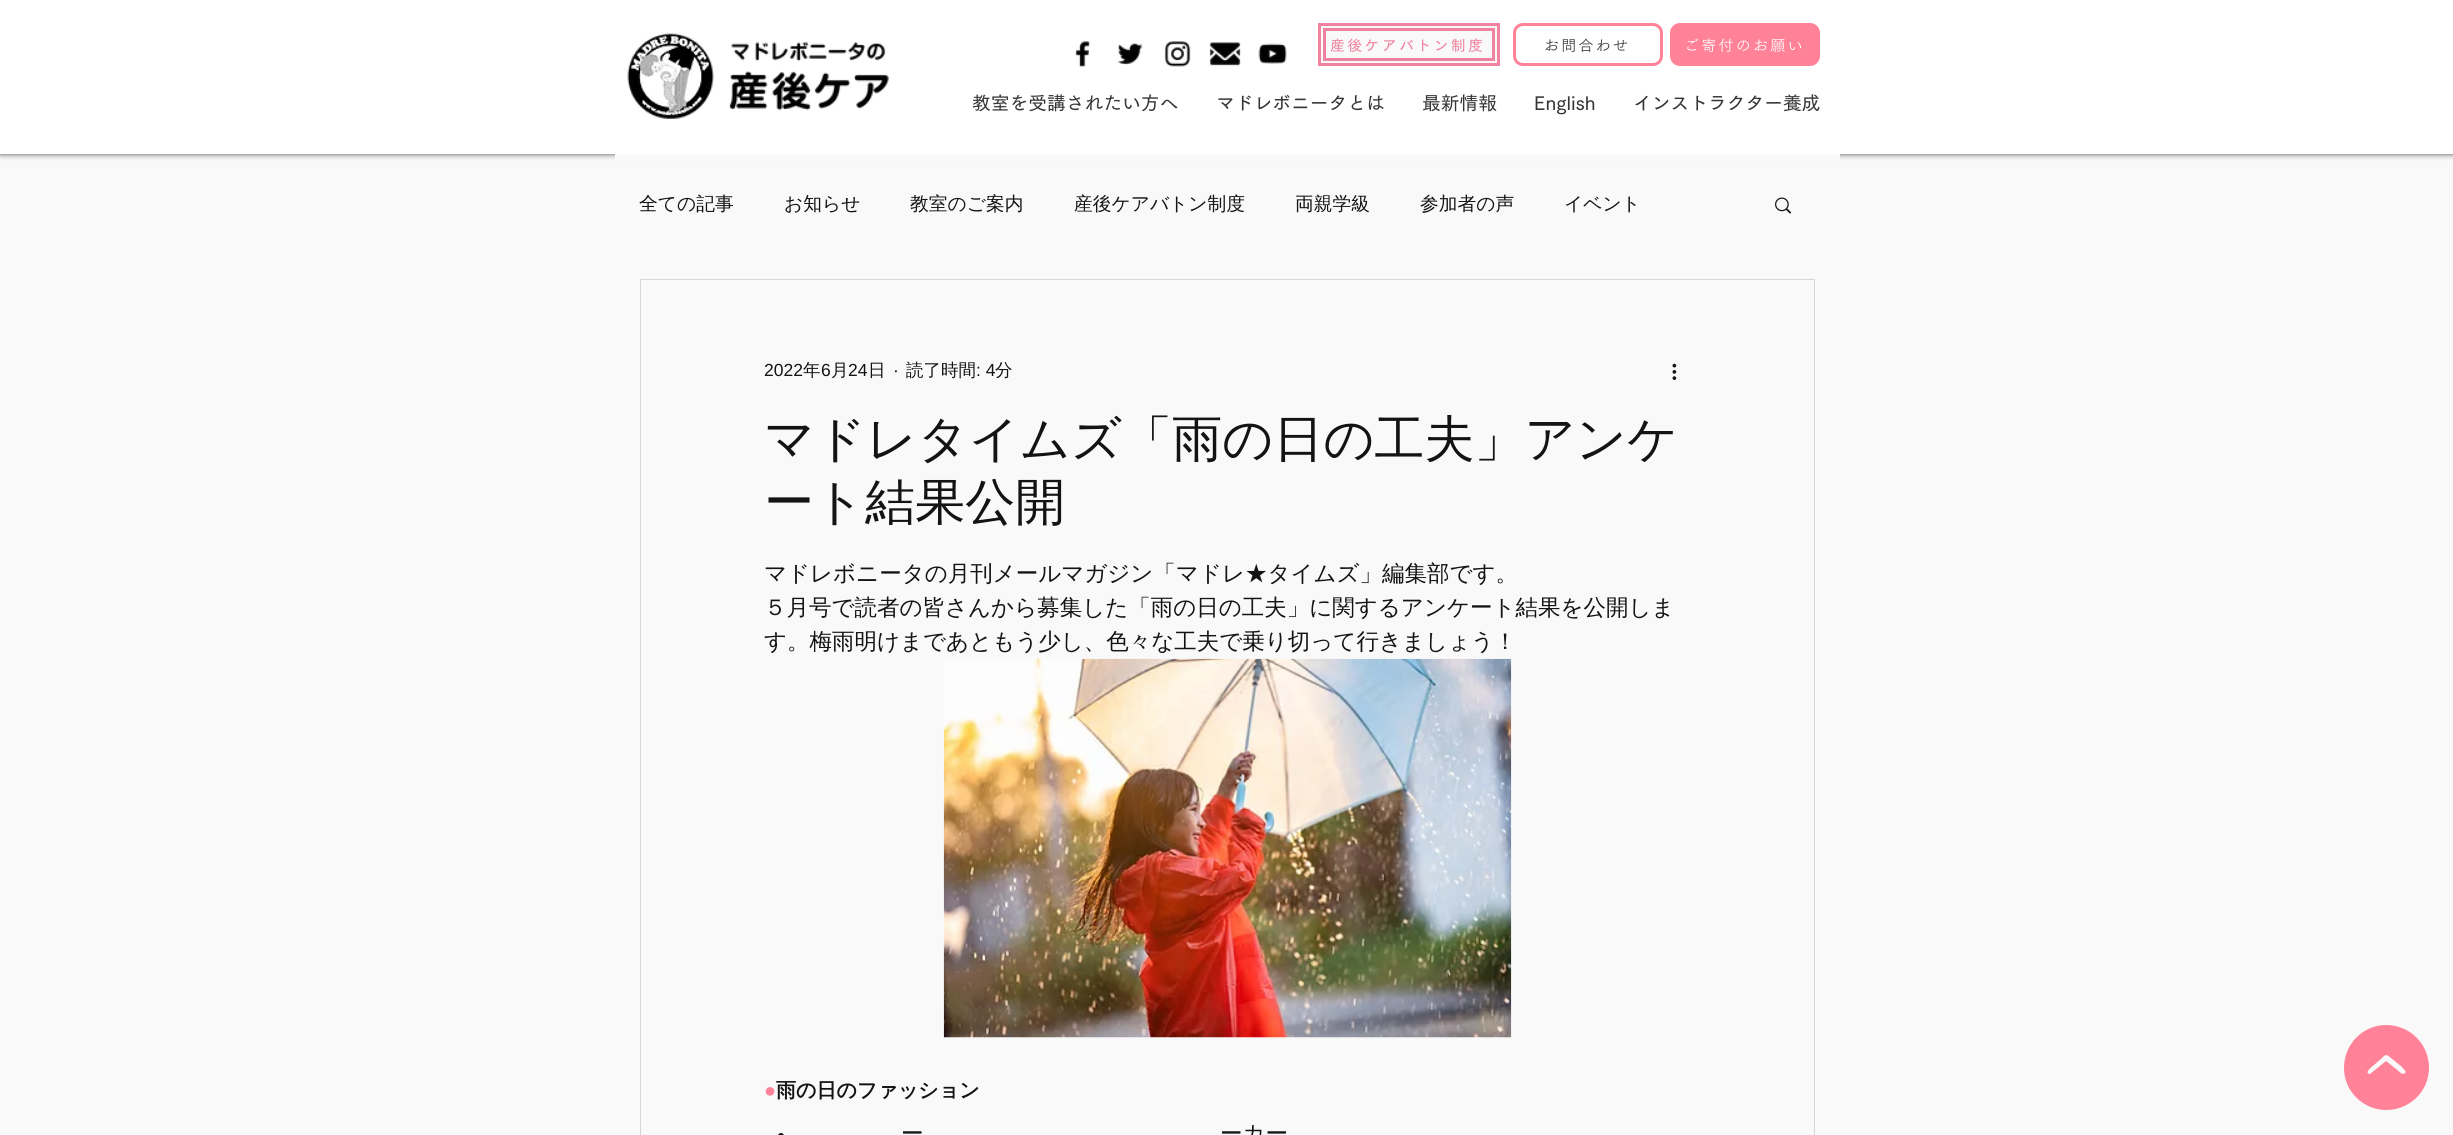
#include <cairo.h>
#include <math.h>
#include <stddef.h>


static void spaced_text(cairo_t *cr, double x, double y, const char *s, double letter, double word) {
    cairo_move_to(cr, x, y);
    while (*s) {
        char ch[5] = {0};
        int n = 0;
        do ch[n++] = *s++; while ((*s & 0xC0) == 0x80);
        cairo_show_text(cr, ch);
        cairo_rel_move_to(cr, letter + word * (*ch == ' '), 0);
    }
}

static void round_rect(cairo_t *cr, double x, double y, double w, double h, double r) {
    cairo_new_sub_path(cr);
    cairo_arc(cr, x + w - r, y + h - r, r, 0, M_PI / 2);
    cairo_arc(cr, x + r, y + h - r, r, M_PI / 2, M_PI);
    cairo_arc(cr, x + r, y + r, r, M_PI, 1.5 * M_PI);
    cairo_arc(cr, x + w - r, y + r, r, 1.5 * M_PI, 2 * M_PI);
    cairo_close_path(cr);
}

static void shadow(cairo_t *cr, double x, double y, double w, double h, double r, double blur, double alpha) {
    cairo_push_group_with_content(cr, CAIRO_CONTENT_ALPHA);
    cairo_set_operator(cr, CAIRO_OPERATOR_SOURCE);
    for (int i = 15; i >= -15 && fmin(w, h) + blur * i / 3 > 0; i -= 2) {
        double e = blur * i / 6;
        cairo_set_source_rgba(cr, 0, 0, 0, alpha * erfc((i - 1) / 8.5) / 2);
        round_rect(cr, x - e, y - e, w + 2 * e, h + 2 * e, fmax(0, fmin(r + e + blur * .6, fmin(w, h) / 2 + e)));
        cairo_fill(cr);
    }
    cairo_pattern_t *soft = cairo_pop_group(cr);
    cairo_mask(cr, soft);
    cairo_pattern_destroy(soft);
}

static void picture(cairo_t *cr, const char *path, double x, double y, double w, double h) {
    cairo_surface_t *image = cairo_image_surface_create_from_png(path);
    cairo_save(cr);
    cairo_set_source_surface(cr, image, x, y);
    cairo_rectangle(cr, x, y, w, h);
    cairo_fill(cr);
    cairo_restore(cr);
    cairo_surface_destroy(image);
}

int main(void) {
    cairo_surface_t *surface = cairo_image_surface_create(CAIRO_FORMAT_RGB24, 2453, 1135);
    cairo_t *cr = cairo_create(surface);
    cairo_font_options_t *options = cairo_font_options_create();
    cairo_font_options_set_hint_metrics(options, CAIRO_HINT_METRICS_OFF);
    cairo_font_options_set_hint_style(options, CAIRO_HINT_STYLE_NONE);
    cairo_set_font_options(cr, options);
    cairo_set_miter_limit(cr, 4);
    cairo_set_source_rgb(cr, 0.976, 0.976, 0.976);
    cairo_paint(cr);
    cairo_set_source_rgb(cr, 0, 0, 0);
    shadow(cr, 0, 0, 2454, 154, 0, 3, 0.7);
    cairo_set_source_rgb(cr, 1, 1, 1);
    cairo_rectangle(cr, 0, 0, 2453, 154);
    cairo_fill(cr);
    picture(cr, "img1.png", 627, 33, 262, 86);
    picture(cr, "img2.png", 1075, 41, 15, 26);
    picture(cr, "img3.png", 1117, 43, 26, 22);
    picture(cr, "img4.png", 1164, 41, 27, 26);
    picture(cr, "img5.png", 1209, 42, 32, 24);
    picture(cr, "img6.png", 1258, 43, 29, 21);
    cairo_set_source_rgb(cr, 0.976, 0.976, 0.976);
    cairo_rectangle(cr, 1319.5, 24.5, 179, 40);
    cairo_fill_preserve(cr);
    cairo_set_source_rgb(cr, 0.937, 0.514, 0.627);
    cairo_set_line_width(cr, 3);
    cairo_stroke(cr);
    cairo_rectangle(cr, 1324.5, 29.5, 169, 30);
    cairo_stroke(cr);
    cairo_select_font_face(cr, "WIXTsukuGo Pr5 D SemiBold", CAIRO_FONT_SLANT_NORMAL, CAIRO_FONT_WEIGHT_NORMAL);
    cairo_set_font_size(cr, 15);
    spaced_text(cr, 1330, 51, "産後ケアバトン制度", 2.25, 0);
    round_rect(cr, 1514.5, 24.5, 147, 40, 8.5);
    cairo_set_source_rgb(cr, 1, 0.51, 0.596);
    cairo_stroke(cr);
    cairo_select_font_face(cr, "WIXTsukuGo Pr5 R", CAIRO_FONT_SLANT_NORMAL, CAIRO_FONT_WEIGHT_NORMAL);
    cairo_set_source_rgb(cr, 0.212, 0.212, 0.208);
    spaced_text(cr, 1544, 51, "お問合わせ", 2.25, 0);
    cairo_set_source_rgb(cr, 1, 0.51, 0.596);
    round_rect(cr, 1670, 23, 150, 43, 10);
    cairo_fill(cr);
    cairo_set_source_rgb(cr, 1, 1, 1);
    spaced_text(cr, 1684, 51, "ご寄付のお願い", 2.25, 0);
    cairo_select_font_face(cr, "WIXTsukuGo Pr5 D SemiBold", CAIRO_FONT_SLANT_NORMAL, CAIRO_FONT_WEIGHT_NORMAL);
    cairo_set_font_size(cr, 18.75);
    cairo_set_source_rgb(cr, 0.212, 0.212, 0.208);
    cairo_move_to(cr, 972, 110);
    cairo_show_text(cr, "教室を受講されたい方へ");
    cairo_move_to(cr, 1216, 110);
    cairo_show_text(cr, "マドレボニータとは");
    cairo_move_to(cr, 1422, 110);
    cairo_show_text(cr, "最新情報");
    cairo_move_to(cr, 1534, 110);
    cairo_show_text(cr, "English");
    cairo_move_to(cr, 1633, 110);
    cairo_show_text(cr, "インストラクター養成");
    cairo_set_source_rgb(cr, 0.976, 0.976, 0.976);
    cairo_rectangle(cr, 615, 154, 1225, 6);
    cairo_fill(cr);
    cairo_select_font_face(cr, "WenQuanYi Zen Hei Medium", CAIRO_FONT_SLANT_NORMAL, CAIRO_FONT_WEIGHT_NORMAL);
    cairo_set_source_rgb(cr, 0.078, 0.078, 0.078);
    cairo_move_to(cr, 639, 210);
    cairo_show_text(cr, "全ての記事");
    cairo_move_to(cr, 784, 210);
    cairo_show_text(cr, "お知らせ");
    cairo_move_to(cr, 910, 210);
    cairo_show_text(cr, "教室のご案内");
    cairo_move_to(cr, 1074, 210);
    cairo_show_text(cr, "産後ケアバトン制度");
    cairo_move_to(cr, 1295, 210);
    cairo_show_text(cr, "両親学級");
    cairo_move_to(cr, 1420, 210);
    cairo_show_text(cr, "参加者の声");
    cairo_move_to(cr, 1564, 210);
    cairo_show_text(cr, "イベント");
    picture(cr, "img7.png", 1775, 197, 17, 17);
    cairo_rectangle(cr, 640.5, 279.5, 1174, 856);
    cairo_set_source_rgb(cr, 0.847, 0.843, 0.843);
    cairo_set_line_width(cr, 1);
    cairo_stroke(cr);
    cairo_select_font_face(cr, "Liberation Sans", CAIRO_FONT_SLANT_NORMAL, CAIRO_FONT_WEIGHT_NORMAL);
    cairo_set_font_size(cr, 17.5);
    cairo_set_source_rgb(cr, 0.078, 0.078, 0.078);
    cairo_move_to(cr, 764, 376);
    cairo_show_text(cr, "2022");
    cairo_select_font_face(cr, "WenQuanYi Zen Hei Medium", CAIRO_FONT_SLANT_NORMAL, CAIRO_FONT_WEIGHT_NORMAL);
    cairo_move_to(cr, 803, 376);
    cairo_show_text(cr, "年");
    cairo_select_font_face(cr, "Liberation Sans", CAIRO_FONT_SLANT_NORMAL, CAIRO_FONT_WEIGHT_NORMAL);
    cairo_move_to(cr, 821, 376);
    cairo_show_text(cr, "6");
    cairo_select_font_face(cr, "WenQuanYi Zen Hei Medium", CAIRO_FONT_SLANT_NORMAL, CAIRO_FONT_WEIGHT_NORMAL);
    cairo_move_to(cr, 831, 376);
    cairo_show_text(cr, "月");
    cairo_select_font_face(cr, "Liberation Sans", CAIRO_FONT_SLANT_NORMAL, CAIRO_FONT_WEIGHT_NORMAL);
    cairo_move_to(cr, 848, 376);
    cairo_show_text(cr, "24");
    cairo_select_font_face(cr, "WenQuanYi Zen Hei Medium", CAIRO_FONT_SLANT_NORMAL, CAIRO_FONT_WEIGHT_NORMAL);
    cairo_move_to(cr, 868, 376);
    cairo_show_text(cr, "日");
    cairo_select_font_face(cr, "Liberation Sans", CAIRO_FONT_SLANT_NORMAL, CAIRO_FONT_WEIGHT_NORMAL);
    cairo_move_to(cr, 893, 376);
    cairo_show_text(cr, "·");
    cairo_select_font_face(cr, "WenQuanYi Zen Hei Medium", CAIRO_FONT_SLANT_NORMAL, CAIRO_FONT_WEIGHT_NORMAL);
    cairo_move_to(cr, 906, 376);
    cairo_show_text(cr, "読了時間");
    cairo_select_font_face(cr, "Liberation Sans", CAIRO_FONT_SLANT_NORMAL, CAIRO_FONT_WEIGHT_NORMAL);
    cairo_move_to(cr, 976, 376);
    cairo_show_text(cr, ": 4");
    cairo_select_font_face(cr, "WenQuanYi Zen Hei Medium", CAIRO_FONT_SLANT_NORMAL, CAIRO_FONT_WEIGHT_NORMAL);
    cairo_move_to(cr, 995, 376);
    cairo_show_text(cr, "分");
    picture(cr, "img8.png", 1672, 363, 5, 17);
    cairo_set_font_size(cr, 50);
    cairo_move_to(cr, 764, 456);
    cairo_show_text(cr, "マドレタイムズ「雨の日の工夫」アンケ");
    cairo_move_to(cr, 764, 519);
    cairo_show_text(cr, "ート結果公開");
    cairo_set_font_size(cr, 22.5);
    cairo_move_to(cr, 764, 581);
    cairo_show_text(cr, "マドレボニータの月刊メールマガジン「マドレ★タイムズ」編集部です。");
    cairo_move_to(cr, 764, 615);
    cairo_show_text(cr, "５月号で読者の皆さんから募集した「雨の日の工夫」に関するアンケート結果を公開しま");
    cairo_move_to(cr, 764, 649);
    cairo_show_text(cr, "す。梅雨明けまであともう少し、色々な工夫で乗り切って行きましょう！");
    picture(cr, "img9.png", 943, 658, 569, 380);
    cairo_select_font_face(cr, "Liberation Sans", CAIRO_FONT_SLANT_NORMAL, CAIRO_FONT_WEIGHT_BOLD);
    cairo_set_font_size(cr, 20);
    cairo_set_source_rgb(cr, 1, 0.51, 0.596);
    cairo_move_to(cr, 764, 1097);
    cairo_show_text(cr, "●");
    cairo_select_font_face(cr, "WenQuanYi Zen Hei", CAIRO_FONT_SLANT_NORMAL, CAIRO_FONT_WEIGHT_BOLD);
    cairo_set_source_rgb(cr, 0.078, 0.078, 0.078);
    cairo_move_to(cr, 776, 1097);
    cairo_show_text(cr, "雨の日のファッション");
    cairo_select_font_face(cr, "WenQuanYi Zen Hei Medium", CAIRO_FONT_SLANT_NORMAL, CAIRO_FONT_WEIGHT_NORMAL);
    cairo_set_font_size(cr, 22.5);
    cairo_move_to(cr, 901, 1141);
    cairo_show_text(cr, "ー");
    cairo_move_to(cr, 1220, 1141);
    cairo_show_text(cr, "ーカー");
    round_rect(cr, 778, 1133, 6, 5, 3);
    cairo_fill(cr);
    cairo_set_source_rgb(cr, 1, 0.51, 0.596);
    cairo_new_path(cr);
    cairo_move_to(cr, 2386, 1025);
    cairo_curve_to(cr, 2363, 1025, 2344, 1044, 2344, 1068);
    cairo_curve_to(cr, 2344, 1091, 2363, 1110, 2386, 1110);
    cairo_curve_to(cr, 2410, 1110, 2429, 1091, 2429, 1068);
    cairo_curve_to(cr, 2429, 1044, 2410, 1025, 2386, 1025);
    cairo_close_path(cr);
    cairo_move_to(cr, 2405, 1073);
    cairo_curve_to(cr, 2402, 1076, 2398, 1070, 2396, 1069);
    cairo_line_to(cr, 2386, 1061);
    cairo_line_to(cr, 2370, 1074);
    cairo_line_to(cr, 2369, 1074);
    cairo_curve_to(cr, 2364, 1072, 2373, 1066, 2374, 1065);
    cairo_line_to(cr, 2382, 1058);
    cairo_curve_to(cr, 2386, 1054, 2386, 1054, 2391, 1058);
    cairo_line_to(cr, 2402, 1067);
    cairo_curve_to(cr, 2403, 1069, 2407, 1071, 2405, 1073);
    cairo_close_path(cr);
    cairo_fill(cr);
    cairo_surface_write_to_png(surface, "page.png");
    cairo_font_options_destroy(options);
    cairo_destroy(cr);
    cairo_surface_destroy(surface);
    return 0;
}
